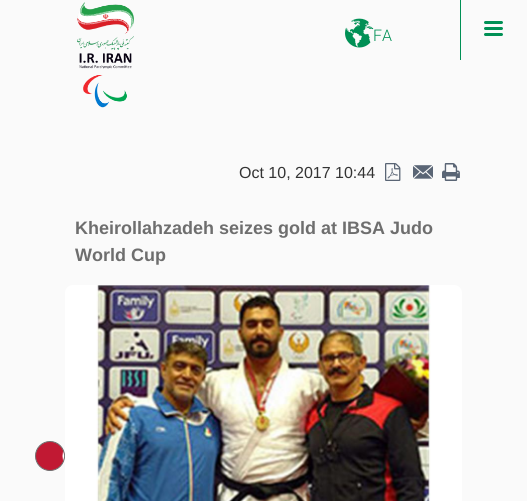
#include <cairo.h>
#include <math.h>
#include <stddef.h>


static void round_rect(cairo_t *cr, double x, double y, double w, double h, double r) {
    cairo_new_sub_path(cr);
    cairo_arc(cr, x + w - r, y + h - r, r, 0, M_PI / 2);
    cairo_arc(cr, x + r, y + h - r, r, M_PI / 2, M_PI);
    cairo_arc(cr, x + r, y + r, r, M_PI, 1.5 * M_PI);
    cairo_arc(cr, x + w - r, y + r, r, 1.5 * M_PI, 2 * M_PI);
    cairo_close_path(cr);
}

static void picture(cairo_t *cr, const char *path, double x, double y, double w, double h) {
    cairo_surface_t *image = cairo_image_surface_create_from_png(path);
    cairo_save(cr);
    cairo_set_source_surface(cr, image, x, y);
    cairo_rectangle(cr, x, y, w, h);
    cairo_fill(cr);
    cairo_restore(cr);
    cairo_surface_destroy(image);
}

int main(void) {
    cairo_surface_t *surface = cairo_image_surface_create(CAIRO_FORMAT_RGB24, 527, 501);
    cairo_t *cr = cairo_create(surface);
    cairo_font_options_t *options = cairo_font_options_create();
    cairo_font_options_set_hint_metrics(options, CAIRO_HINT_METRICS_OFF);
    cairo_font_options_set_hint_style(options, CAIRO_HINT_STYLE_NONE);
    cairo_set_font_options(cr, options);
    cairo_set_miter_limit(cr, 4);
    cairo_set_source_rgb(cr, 0.98, 0.98, 0.98);
    cairo_paint(cr);
    picture(cr, "img1.png", 77, 2, 57, 106);
    picture(cr, "img2.png", 345, 18, 29, 30);
    cairo_select_font_face(cr, "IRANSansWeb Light", CAIRO_FONT_SLANT_NORMAL, CAIRO_FONT_WEIGHT_NORMAL);
    cairo_set_font_size(cr, 16);
    cairo_set_source_rgb(cr, 0, 0.565, 0.333);
    cairo_move_to(cr, 373, 41);
    cairo_show_text(cr, "FA");
    cairo_rectangle(cr, 460, 0, 1, 60);
    cairo_fill(cr);
    round_rect(cr, 484, 21, 19, 3, 1.5);
    cairo_fill(cr);
    round_rect(cr, 484, 27, 19, 3, 1.5);
    cairo_fill(cr);
    round_rect(cr, 484, 33, 19, 3, 1.5);
    cairo_fill(cr);
    cairo_select_font_face(cr, "Liberation Sans", CAIRO_FONT_SLANT_NORMAL, CAIRO_FONT_WEIGHT_NORMAL);
    cairo_set_source_rgb(cr, 0.2, 0.2, 0.2);
    cairo_move_to(cr, 239, 178);
    cairo_show_text(cr, "Oct 10, 2017 10:44");
    picture(cr, "img3.png", 385, 163, 16, 18);
    picture(cr, "img4.png", 413, 165, 20, 14);
    picture(cr, "img5.png", 442, 163, 18, 18);
    cairo_select_font_face(cr, "Liberation Sans", CAIRO_FONT_SLANT_NORMAL, CAIRO_FONT_WEIGHT_BOLD);
    cairo_set_font_size(cr, 18);
    cairo_set_source_rgb(cr, 0.431, 0.431, 0.431);
    cairo_move_to(cr, 75, 234);
    cairo_show_text(cr, "Kheirollahzadeh seizes gold at IBSA Judo");
    cairo_move_to(cr, 75, 261);
    cairo_show_text(cr, "World Cup");
    cairo_set_source_rgb(cr, 1, 1, 1);
    round_rect(cr, 65, 285, 397, 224, 8);
    cairo_fill(cr);
    picture(cr, "img6.png", 96, 285, 335, 216);
    cairo_set_source_rgb(cr, 0.757, 0.098, 0.2);
    cairo_arc(cr, 50, 456, 14.5, 0, 2 * M_PI);
    cairo_fill_preserve(cr);
    cairo_set_source_rgb(cr, 0.439, 0.439, 0.439);
    cairo_set_line_width(cr, 1);
    cairo_stroke(cr);
    cairo_set_source_rgb(cr, 1, 1, 1);
    cairo_new_path(cr);
    cairo_move_to(cr, 62.5, 456);
    cairo_line_to(cr, 63, 451.5);
    cairo_curve_to(cr, 64.5, 454.5, 64.5, 457.5, 63, 460.5);
    cairo_close_path(cr);
    cairo_fill(cr);
    cairo_surface_write_to_png(surface, "page.png");
    cairo_font_options_destroy(options);
    cairo_destroy(cr);
    cairo_surface_destroy(surface);
    return 0;
}
